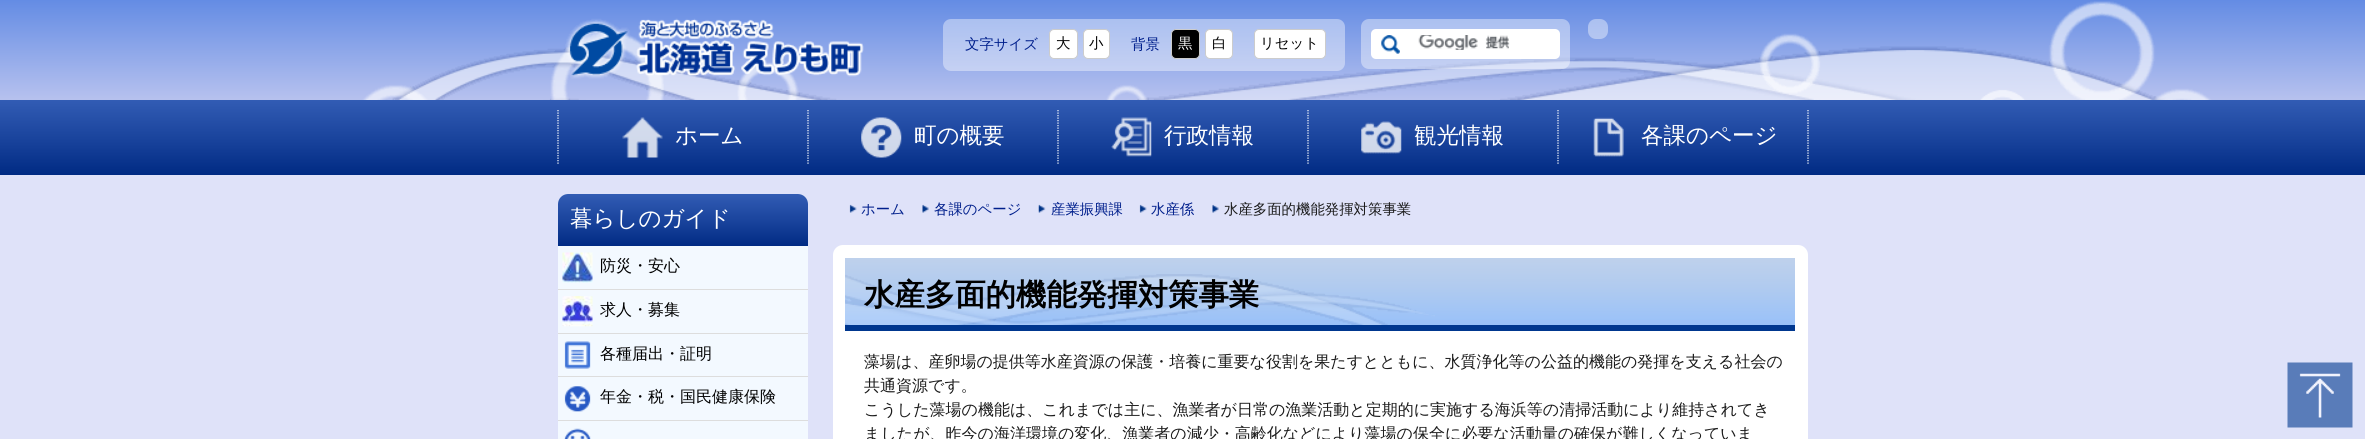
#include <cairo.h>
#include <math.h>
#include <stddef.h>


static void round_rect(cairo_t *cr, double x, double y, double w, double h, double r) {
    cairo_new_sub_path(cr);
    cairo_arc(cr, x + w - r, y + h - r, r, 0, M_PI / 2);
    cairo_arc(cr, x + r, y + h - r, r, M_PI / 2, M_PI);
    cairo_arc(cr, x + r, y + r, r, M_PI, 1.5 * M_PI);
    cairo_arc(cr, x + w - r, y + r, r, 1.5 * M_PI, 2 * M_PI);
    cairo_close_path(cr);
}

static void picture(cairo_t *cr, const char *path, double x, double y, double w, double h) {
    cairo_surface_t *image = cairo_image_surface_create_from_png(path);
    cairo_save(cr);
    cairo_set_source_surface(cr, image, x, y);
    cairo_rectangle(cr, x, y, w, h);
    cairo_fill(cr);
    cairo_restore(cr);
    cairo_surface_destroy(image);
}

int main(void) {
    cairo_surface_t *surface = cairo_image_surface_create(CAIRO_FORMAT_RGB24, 2365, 439);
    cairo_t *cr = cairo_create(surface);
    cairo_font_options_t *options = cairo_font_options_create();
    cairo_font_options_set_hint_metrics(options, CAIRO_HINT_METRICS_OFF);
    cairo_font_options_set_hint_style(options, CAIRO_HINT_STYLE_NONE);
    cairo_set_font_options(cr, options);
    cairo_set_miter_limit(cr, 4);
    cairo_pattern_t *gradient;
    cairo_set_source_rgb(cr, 0.875, 0.886, 0.973);
    cairo_paint(cr);
    gradient = cairo_pattern_create_linear(1183, 0, 1183, 175);
    cairo_pattern_add_color_stop_rgba(gradient, 0, 0.392, 0.549, 0.894, 1);
    cairo_pattern_add_color_stop_rgba(gradient, 0.6, 0.733, 0.769, 0.937, 1);
    cairo_set_source(cr, gradient);
    cairo_pattern_destroy(gradient);
    cairo_rectangle(cr, 0, 0, 2365, 100);
    cairo_fill(cr);
    picture(cr, "img1.png", 362, 1, 1850, 99);
    picture(cr, "img2.png", 565, 18, 299, 61);
    cairo_set_source_rgba(cr, 1, 1, 1, 0.4);
    round_rect(cr, 1361, 19, 209, 50, 8);
    cairo_fill(cr);
    cairo_set_source_rgb(cr, 1, 1, 1);
    round_rect(cr, 1371, 29, 189, 30, 5);
    cairo_fill(cr);
    picture(cr, "img3.png", 1381, 35, 19, 19);
    picture(cr, "img4.png", 1418, 35, 92, 15);
    cairo_set_source_rgba(cr, 1, 1, 1, 0.4);
    round_rect(cr, 1588, 19, 20, 20, 8);
    cairo_fill(cr);
    round_rect(cr, 943, 19, 402, 52, 8);
    cairo_fill(cr);
    cairo_select_font_face(cr, "WenQuanYi Zen Hei Medium", CAIRO_FONT_SLANT_NORMAL, CAIRO_FONT_WEIGHT_NORMAL);
    cairo_set_font_size(cr, 14.4);
    cairo_set_source_rgb(cr, 0, 0.122, 0.549);
    cairo_move_to(cr, 965, 49);
    cairo_show_text(cr, "文字サイズ");
    cairo_set_source_rgb(cr, 1, 1, 1);
    round_rect(cr, 1049.5, 29.5, 28, 29, 4.5);
    cairo_fill_preserve(cr);
    cairo_set_source_rgb(cr, 0.8, 0.8, 0.8);
    cairo_set_line_width(cr, 1);
    cairo_stroke(cr);
    cairo_set_source_rgb(cr, 0, 0, 0);
    cairo_move_to(cr, 1056, 48);
    cairo_show_text(cr, "大");
    cairo_set_source_rgb(cr, 1, 1, 1);
    round_rect(cr, 1083.5, 29.5, 26, 29, 4.5);
    cairo_fill_preserve(cr);
    cairo_set_source_rgb(cr, 0.8, 0.8, 0.8);
    cairo_stroke(cr);
    cairo_set_source_rgb(cr, 0, 0, 0);
    cairo_move_to(cr, 1089, 48);
    cairo_show_text(cr, "小");
    cairo_set_source_rgb(cr, 0, 0.122, 0.549);
    cairo_move_to(cr, 1131, 49);
    cairo_show_text(cr, "背景");
    cairo_set_source_rgb(cr, 0, 0, 0);
    round_rect(cr, 1171.5, 29.5, 28, 29, 4.5);
    cairo_fill_preserve(cr);
    cairo_set_source_rgb(cr, 0.8, 0.8, 0.8);
    cairo_stroke(cr);
    cairo_set_source_rgb(cr, 1, 1, 1);
    cairo_move_to(cr, 1178, 48);
    cairo_show_text(cr, "黒");
    round_rect(cr, 1205.5, 29.5, 27, 29, 4.5);
    cairo_fill_preserve(cr);
    cairo_set_source_rgb(cr, 0.8, 0.8, 0.8);
    cairo_stroke(cr);
    cairo_set_source_rgb(cr, 0, 0, 0);
    cairo_move_to(cr, 1212, 48);
    cairo_show_text(cr, "白");
    cairo_set_source_rgb(cr, 1, 1, 1);
    round_rect(cr, 1254.5, 29.5, 71, 29, 4.5);
    cairo_fill_preserve(cr);
    cairo_set_source_rgb(cr, 0.8, 0.8, 0.8);
    cairo_stroke(cr);
    cairo_set_source_rgb(cr, 0, 0, 0);
    cairo_move_to(cr, 1260, 48);
    cairo_show_text(cr, "リセット");
    gradient = cairo_pattern_create_linear(1183, 100, 1183, 175);
    cairo_pattern_add_color_stop_rgba(gradient, 0, 0.196, 0.361, 0.706, 1);
    cairo_pattern_add_color_stop_rgba(gradient, 0.42, 0.118, 0.282, 0.631, 1);
    cairo_pattern_add_color_stop_rgba(gradient, 0.55, 0.094, 0.259, 0.608, 1);
    cairo_pattern_add_color_stop_rgba(gradient, 1, 0, 0.165, 0.514, 1);
    cairo_set_source(cr, gradient);
    cairo_pattern_destroy(gradient);
    cairo_rectangle(cr, 0, 100, 2365, 75);
    cairo_fill(cr);
    cairo_new_path(cr);
    cairo_move_to(cr, 1808, 110);
    cairo_line_to(cr, 1808, 165);
    cairo_set_source_rgb(cr, 1, 1, 1);
    cairo_set_line_width(cr, 1.2);
    cairo_set_dash(cr, (double[]){1.25, 1.25}, 2, 0);
    cairo_stroke(cr);
    cairo_new_path(cr);
    cairo_move_to(cr, 558, 110);
    cairo_line_to(cr, 558, 165);
    cairo_stroke(cr);
    picture(cr, "img5.png", 622, 117, 41, 41);
    cairo_set_font_size(cr, 22.5);
    cairo_move_to(cr, 675, 143);
    cairo_show_text(cr, "ホーム");
    cairo_new_path(cr);
    cairo_move_to(cr, 808, 110);
    cairo_line_to(cr, 808, 165);
    cairo_stroke(cr);
    picture(cr, "img6.png", 861, 117, 41, 41);
    cairo_move_to(cr, 914, 143);
    cairo_show_text(cr, "町の概要");
    cairo_new_path(cr);
    cairo_move_to(cr, 1058, 110);
    cairo_line_to(cr, 1058, 165);
    cairo_stroke(cr);
    picture(cr, "img7.png", 1111, 117, 41, 40);
    cairo_move_to(cr, 1164, 143);
    cairo_show_text(cr, "行政情報");
    cairo_new_path(cr);
    cairo_move_to(cr, 1308, 110);
    cairo_line_to(cr, 1308, 165);
    cairo_stroke(cr);
    picture(cr, "img8.png", 1361, 121, 41, 33);
    cairo_move_to(cr, 1414, 143);
    cairo_show_text(cr, "観光情報");
    cairo_new_path(cr);
    cairo_move_to(cr, 1558, 110);
    cairo_line_to(cr, 1558, 165);
    cairo_stroke(cr);
    picture(cr, "img9.png", 1593, 117, 31, 40);
    cairo_move_to(cr, 1641, 143);
    cairo_show_text(cr, "各課のページ");
    cairo_set_source_rgb(cr, 0.953, 0.973, 1);
    round_rect(cr, 558, 194, 250, 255, 10);
    cairo_fill(cr);
    gradient = cairo_pattern_create_linear(683, 194, 683, 246);
    cairo_pattern_add_color_stop_rgba(gradient, 0, 0.196, 0.361, 0.706, 1);
    cairo_pattern_add_color_stop_rgba(gradient, 0.42, 0.118, 0.282, 0.631, 1);
    cairo_pattern_add_color_stop_rgba(gradient, 0.55, 0.094, 0.259, 0.608, 1);
    cairo_pattern_add_color_stop_rgba(gradient, 1, 0, 0.165, 0.514, 1);
    cairo_set_source(cr, gradient);
    cairo_pattern_destroy(gradient);
    cairo_new_path(cr);
    cairo_move_to(cr, 568, 194);
    cairo_line_to(cr, 798, 194);
    cairo_curve_to(cr, 803.5, 194, 808, 198.5, 808, 204);
    cairo_line_to(cr, 808, 246);
    cairo_line_to(cr, 558, 246);
    cairo_line_to(cr, 558, 204);
    cairo_curve_to(cr, 558, 198.5, 562.5, 194, 568, 194);
    cairo_close_path(cr);
    cairo_fill(cr);
    cairo_set_source_rgb(cr, 1, 1, 1);
    cairo_move_to(cr, 570, 226);
    cairo_show_text(cr, "暮らしのガイド");
    picture(cr, "img10.png", 562, 252, 31, 31);
    cairo_set_font_size(cr, 16);
    cairo_set_source_rgb(cr, 0, 0, 0);
    cairo_move_to(cr, 600, 271);
    cairo_show_text(cr, "防災・安心");
    cairo_set_source_rgb(cr, 0.867, 0.867, 0.867);
    cairo_rectangle(cr, 558, 289, 250, 1);
    cairo_fill(cr);
    picture(cr, "img11.png", 562, 296, 31, 31);
    cairo_set_source_rgb(cr, 0, 0, 0);
    cairo_move_to(cr, 600, 315);
    cairo_show_text(cr, "求人・募集");
    cairo_set_source_rgb(cr, 0.867, 0.867, 0.867);
    cairo_rectangle(cr, 558, 333, 250, 1);
    cairo_fill(cr);
    picture(cr, "img12.png", 564, 341, 27, 28);
    cairo_set_source_rgb(cr, 0, 0, 0);
    cairo_move_to(cr, 600, 359);
    cairo_show_text(cr, "各種届出・証明");
    cairo_set_source_rgb(cr, 0.867, 0.867, 0.867);
    cairo_rectangle(cr, 558, 376, 250, 1);
    cairo_fill(cr);
    picture(cr, "img13.png", 564, 386, 27, 26);
    cairo_set_source_rgb(cr, 0, 0, 0);
    cairo_move_to(cr, 600, 402);
    cairo_show_text(cr, "年金・税・国民健康保険");
    cairo_set_source_rgb(cr, 0.867, 0.867, 0.867);
    cairo_rectangle(cr, 558, 420, 250, 1);
    cairo_fill(cr);
    picture(cr, "img14.png", 564, 428, 27, 11);
    picture(cr, "img15.png", 849, 204, 8, 9);
    cairo_set_font_size(cr, 14.4);
    cairo_set_source_rgb(cr, 0, 0.122, 0.549);
    cairo_move_to(cr, 861, 214);
    cairo_show_text(cr, "ホーム");
    picture(cr, "img16.png", 922, 204, 7, 9);
    cairo_move_to(cr, 934, 214);
    cairo_show_text(cr, "各課のページ");
    picture(cr, "img17.png", 1038, 204, 8, 9);
    cairo_move_to(cr, 1051, 214);
    cairo_show_text(cr, "産業振興課");
    picture(cr, "img15.png", 1139, 204, 8, 9);
    cairo_move_to(cr, 1151, 214);
    cairo_show_text(cr, "水産係");
    picture(cr, "img16.png", 1212, 204, 7, 9);
    cairo_set_source_rgb(cr, 0.102, 0.102, 0.102);
    cairo_move_to(cr, 1224, 214);
    cairo_show_text(cr, "水産多面的機能発揮対策事業");
    cairo_set_source_rgb(cr, 1, 1, 1);
    round_rect(cr, 833, 245, 975, 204, 10);
    cairo_fill(cr);
    gradient = cairo_pattern_create_linear(1320, 257, 1320, 325);
    cairo_pattern_add_color_stop_rgba(gradient, 0, 0.749, 0.82, 0.925, 1);
    cairo_pattern_add_color_stop_rgba(gradient, 0.43, 0.694, 0.796, 0.937, 1);
    cairo_pattern_add_color_stop_rgba(gradient, 1, 0.6, 0.757, 0.976, 1);
    cairo_set_source(cr, gradient);
    cairo_pattern_destroy(gradient);
    cairo_rectangle(cr, 845, 258, 950, 67);
    cairo_fill(cr);
    cairo_set_source_rgb(cr, 0, 0.216, 0.561);
    cairo_rectangle(cr, 845, 325, 950, 6);
    cairo_fill(cr);
    picture(cr, "img18.png", 845, 274, 590, 51);
    cairo_select_font_face(cr, "WenQuanYi Zen Hei", CAIRO_FONT_SLANT_NORMAL, CAIRO_FONT_WEIGHT_BOLD);
    cairo_set_font_size(cr, 30.4);
    cairo_set_source_rgb(cr, 0, 0, 0);
    cairo_move_to(cr, 864, 305);
    cairo_show_text(cr, "水産多面的機能発揮対策事業");
    cairo_select_font_face(cr, "WenQuanYi Zen Hei Medium", CAIRO_FONT_SLANT_NORMAL, CAIRO_FONT_WEIGHT_NORMAL);
    cairo_set_font_size(cr, 16);
    cairo_set_source_rgb(cr, 0.102, 0.102, 0.102);
    cairo_move_to(cr, 864, 367);
    cairo_show_text(cr, "藻場は、産卵場の提供等水産資源の保護・培養に重要な役割を果たすとともに、水質浄化等の公益的機能の発揮を支える社会の");
    cairo_move_to(cr, 864, 391);
    cairo_show_text(cr, "共通資源です。");
    cairo_move_to(cr, 864, 415);
    cairo_show_text(cr, "こうした藻場の機能は、これまでは主に、漁業者が日常の漁業活動と定期的に実施する海浜等の清掃活動により維持されてき");
    cairo_move_to(cr, 864, 439);
    cairo_show_text(cr, "ましたが、昨今の海洋環境の変化、漁業者の減少・高齢化などにより藻場の保全に必要な活動量の確保が難しくなっていま");
    picture(cr, "img19.png", 2287, 362, 66, 66);
    cairo_surface_write_to_png(surface, "page.png");
    cairo_font_options_destroy(options);
    cairo_destroy(cr);
    cairo_surface_destroy(surface);
    return 0;
}
